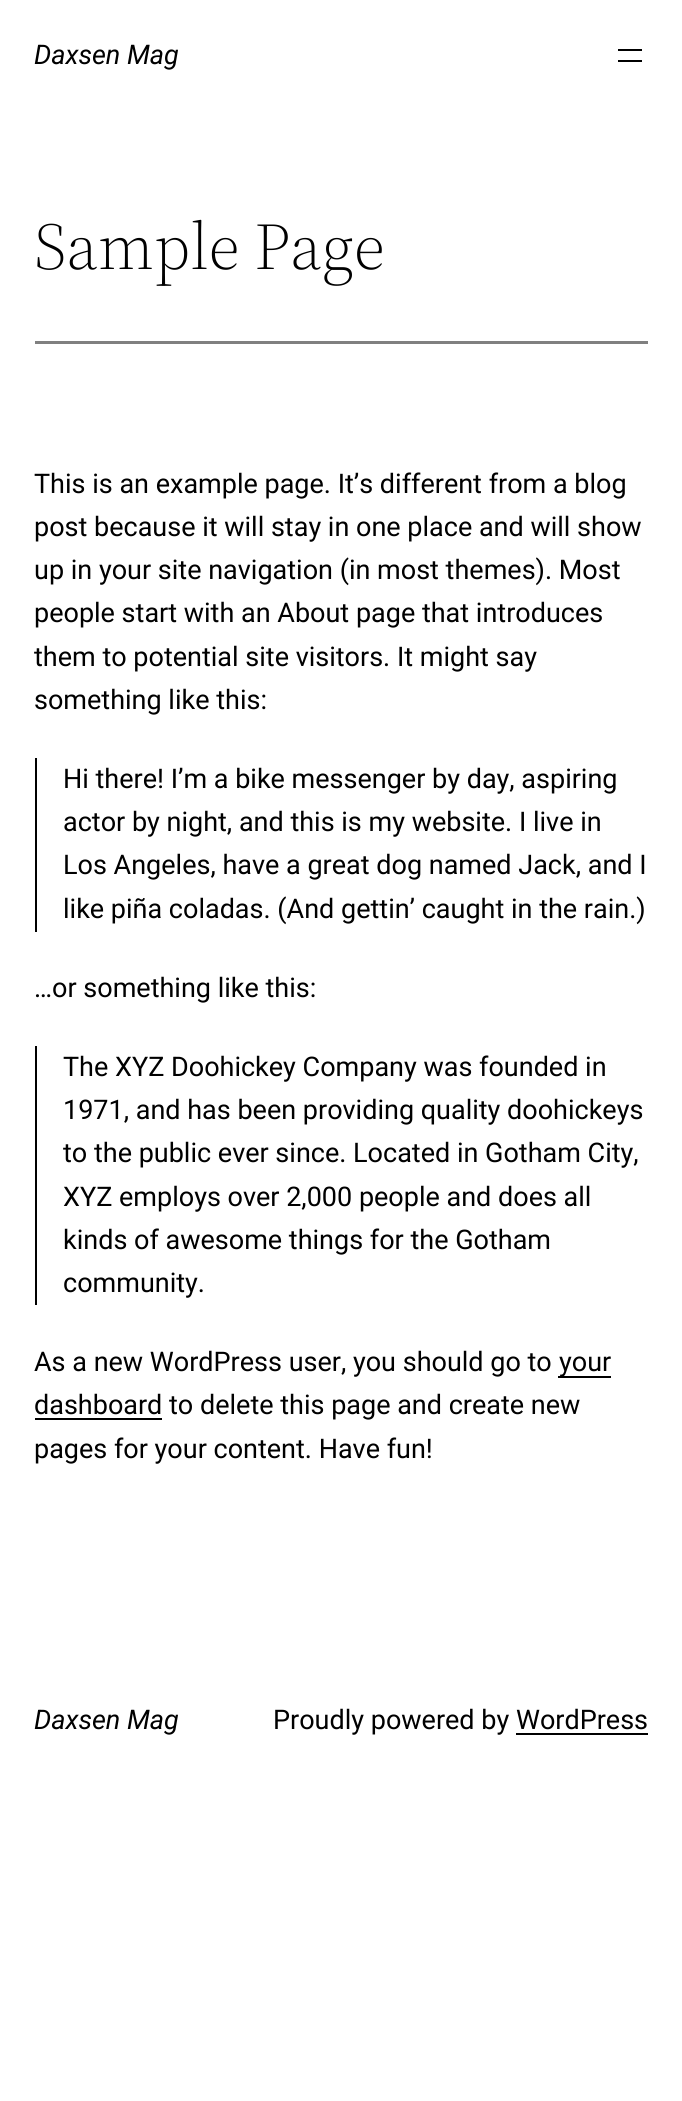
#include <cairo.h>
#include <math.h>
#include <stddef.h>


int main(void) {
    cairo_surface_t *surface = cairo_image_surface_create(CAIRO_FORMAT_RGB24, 682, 2101);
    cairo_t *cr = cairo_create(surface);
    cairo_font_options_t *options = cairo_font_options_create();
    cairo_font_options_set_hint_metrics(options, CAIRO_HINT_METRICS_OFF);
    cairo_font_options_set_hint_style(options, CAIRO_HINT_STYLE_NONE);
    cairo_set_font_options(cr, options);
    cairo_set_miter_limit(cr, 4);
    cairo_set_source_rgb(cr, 1, 1, 1);
    cairo_paint(cr);
    cairo_select_font_face(cr, "Roboto", CAIRO_FONT_SLANT_ITALIC, CAIRO_FONT_WEIGHT_NORMAL);
    cairo_set_font_size(cr, 27);
    cairo_set_source_rgb(cr, 0, 0, 0);
    cairo_move_to(cr, 34, 64);
    cairo_show_text(cr, "Daxsen Mag");
    cairo_rectangle(cr, 618, 49, 24, 2);
    cairo_fill(cr);
    cairo_rectangle(cr, 618, 60, 24, 2);
    cairo_fill(cr);
    cairo_select_font_face(cr, "Source Serif 4 Light", CAIRO_FONT_SLANT_NORMAL, CAIRO_FONT_WEIGHT_NORMAL);
    cairo_set_font_size(cr, 66);
    cairo_move_to(cr, 34, 269);
    cairo_show_text(cr, "Sample Page");
    cairo_set_source_rgb(cr, 0.502, 0.502, 0.502);
    cairo_rectangle(cr, 35, 341, 613, 3);
    cairo_fill(cr);
    cairo_select_font_face(cr, "Roboto", CAIRO_FONT_SLANT_NORMAL, CAIRO_FONT_WEIGHT_NORMAL);
    cairo_set_font_size(cr, 27);
    cairo_set_source_rgb(cr, 0, 0, 0);
    cairo_move_to(cr, 34, 493);
    cairo_show_text(cr, "This is an example page. It’s different from a blog");
    cairo_move_to(cr, 34, 536);
    cairo_show_text(cr, "post because it will stay in one place and will show");
    cairo_move_to(cr, 34, 579);
    cairo_show_text(cr, "up in your site navigation (in most themes). Most");
    cairo_move_to(cr, 34, 622);
    cairo_show_text(cr, "people start with an About page that introduces");
    cairo_move_to(cr, 34, 666);
    cairo_show_text(cr, "them to potential site visitors. It might say");
    cairo_move_to(cr, 34, 709);
    cairo_show_text(cr, "something like this:");
    cairo_rectangle(cr, 35, 758, 2, 174);
    cairo_fill(cr);
    cairo_move_to(cr, 63, 788);
    cairo_show_text(cr, "Hi there! I’m a bike messenger by day, aspiring");
    cairo_move_to(cr, 63, 831);
    cairo_show_text(cr, "actor by night, and this is my website. I live in");
    cairo_move_to(cr, 63, 874);
    cairo_show_text(cr, "Los Angeles, have a great dog named Jack, and I");
    cairo_move_to(cr, 63, 918);
    cairo_show_text(cr, "like piña coladas. (And gettin’ caught in the rain.)");
    cairo_move_to(cr, 34, 997);
    cairo_show_text(cr, "…or something like this:");
    cairo_rectangle(cr, 35, 1046, 2, 259);
    cairo_fill(cr);
    cairo_move_to(cr, 63, 1076);
    cairo_show_text(cr, "The XYZ Doohickey Company was founded in");
    cairo_move_to(cr, 63, 1119);
    cairo_show_text(cr, "1971, and has been providing quality doohickeys");
    cairo_move_to(cr, 63, 1162);
    cairo_show_text(cr, "to the public ever since. Located in Gotham City,");
    cairo_move_to(cr, 63, 1206);
    cairo_show_text(cr, "XYZ employs over 2,000 people and does all");
    cairo_move_to(cr, 63, 1249);
    cairo_show_text(cr, "kinds of awesome things for the Gotham");
    cairo_move_to(cr, 63, 1292);
    cairo_show_text(cr, "community.");
    cairo_move_to(cr, 34, 1371);
    cairo_show_text(cr, "As a new WordPress user, you should go to");
    cairo_rectangle(cr, 558, 1376, 53, 2);
    cairo_fill(cr);
    cairo_move_to(cr, 559, 1371);
    cairo_show_text(cr, "your");
    cairo_rectangle(cr, 35, 1418, 127, 2);
    cairo_fill(cr);
    cairo_move_to(cr, 34, 1414);
    cairo_show_text(cr, "dashboard to delete this page and create new");
    cairo_move_to(cr, 34, 1458);
    cairo_show_text(cr, "pages for your content. Have fun!");
    cairo_select_font_face(cr, "Roboto", CAIRO_FONT_SLANT_ITALIC, CAIRO_FONT_WEIGHT_NORMAL);
    cairo_move_to(cr, 34, 1729);
    cairo_show_text(cr, "Daxsen Mag");
    cairo_select_font_face(cr, "Roboto", CAIRO_FONT_SLANT_NORMAL, CAIRO_FONT_WEIGHT_NORMAL);
    cairo_move_to(cr, 273, 1729);
    cairo_show_text(cr, "Proudly powered by WordPress");
    cairo_rectangle(cr, 516, 1733, 132, 2);
    cairo_fill(cr);
    cairo_surface_write_to_png(surface, "page.png");
    cairo_font_options_destroy(options);
    cairo_destroy(cr);
    cairo_surface_destroy(surface);
    return 0;
}
